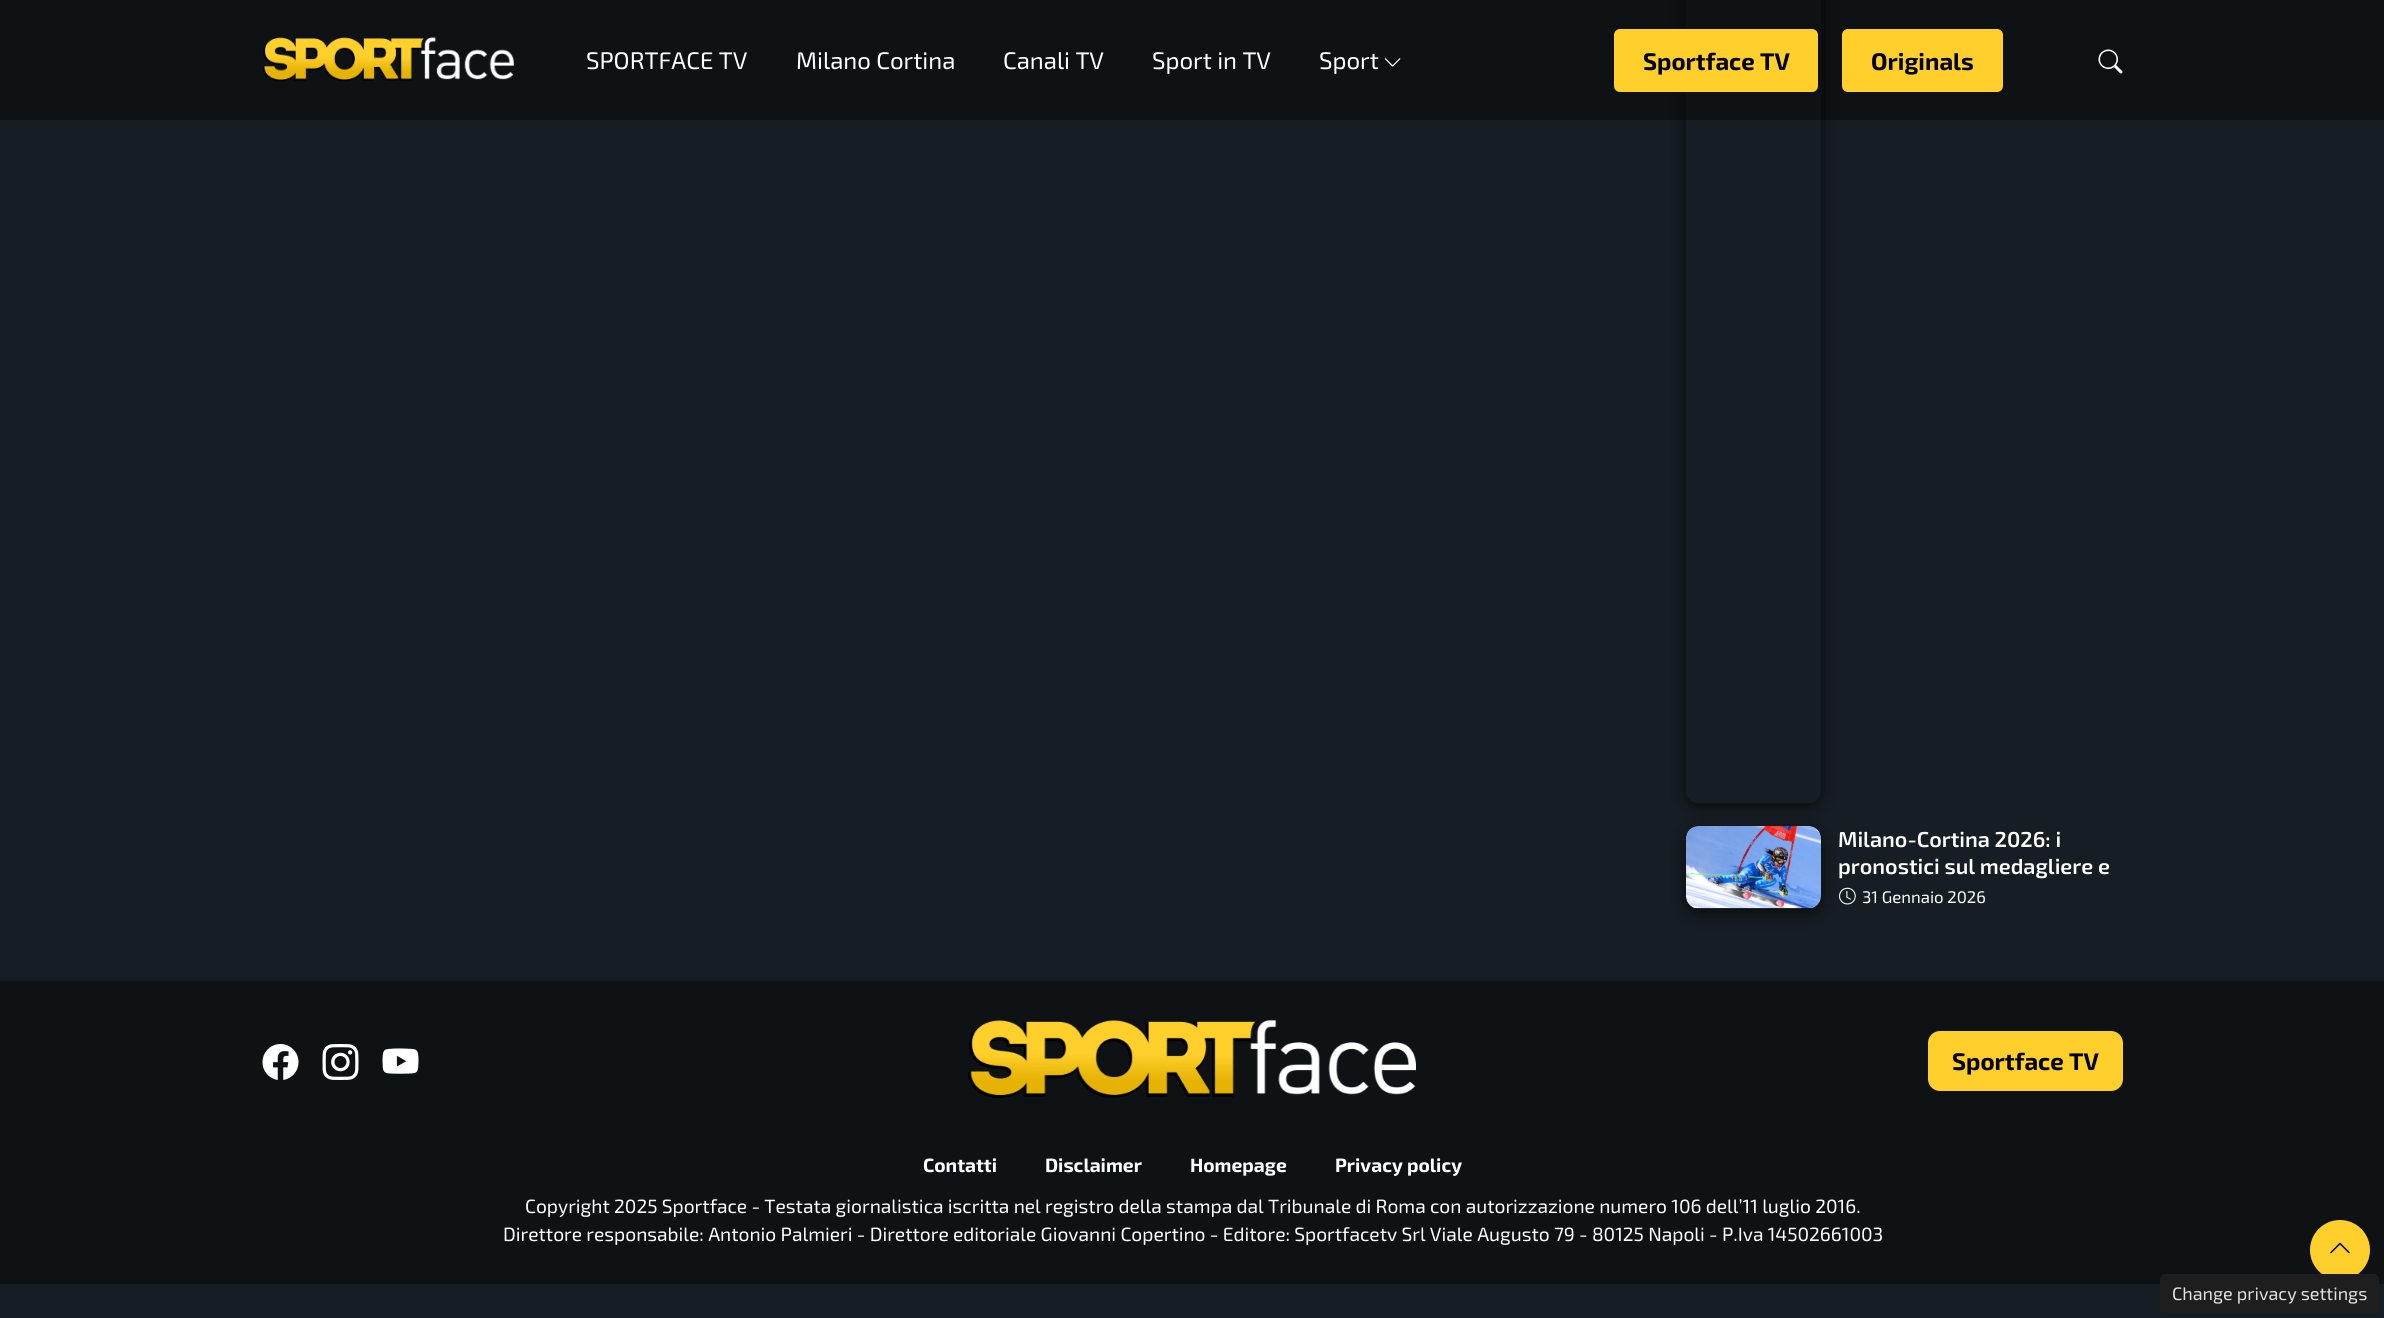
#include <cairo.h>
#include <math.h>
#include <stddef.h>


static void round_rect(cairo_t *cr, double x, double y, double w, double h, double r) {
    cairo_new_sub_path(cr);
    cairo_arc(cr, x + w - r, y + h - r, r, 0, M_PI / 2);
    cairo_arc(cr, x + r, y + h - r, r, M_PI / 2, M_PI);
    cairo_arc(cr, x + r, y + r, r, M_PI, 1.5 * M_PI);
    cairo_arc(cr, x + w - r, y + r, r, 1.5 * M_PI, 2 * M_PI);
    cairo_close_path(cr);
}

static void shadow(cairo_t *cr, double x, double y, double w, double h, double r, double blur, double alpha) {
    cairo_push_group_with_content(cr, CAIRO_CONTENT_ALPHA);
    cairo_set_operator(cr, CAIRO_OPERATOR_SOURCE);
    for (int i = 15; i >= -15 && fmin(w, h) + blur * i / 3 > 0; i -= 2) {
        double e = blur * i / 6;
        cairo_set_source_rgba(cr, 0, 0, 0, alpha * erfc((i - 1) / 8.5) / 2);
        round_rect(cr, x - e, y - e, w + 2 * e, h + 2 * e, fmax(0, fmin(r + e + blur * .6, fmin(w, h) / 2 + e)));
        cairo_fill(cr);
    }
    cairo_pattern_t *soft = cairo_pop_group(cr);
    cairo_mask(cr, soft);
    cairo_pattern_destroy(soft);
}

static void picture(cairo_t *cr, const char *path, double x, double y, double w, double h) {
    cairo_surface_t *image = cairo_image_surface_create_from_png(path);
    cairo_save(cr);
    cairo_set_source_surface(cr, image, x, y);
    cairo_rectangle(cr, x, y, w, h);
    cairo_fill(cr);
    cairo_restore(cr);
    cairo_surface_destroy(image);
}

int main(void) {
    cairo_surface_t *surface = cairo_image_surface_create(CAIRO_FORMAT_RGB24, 2384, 1318);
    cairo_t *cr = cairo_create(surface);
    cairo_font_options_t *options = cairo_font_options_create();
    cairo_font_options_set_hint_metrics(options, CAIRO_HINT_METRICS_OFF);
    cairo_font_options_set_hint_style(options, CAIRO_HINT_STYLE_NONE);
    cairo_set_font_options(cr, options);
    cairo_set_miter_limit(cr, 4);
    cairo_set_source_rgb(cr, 0.09, 0.118, 0.137);
    cairo_paint(cr);
    cairo_save(cr);
    cairo_set_fill_rule(cr, CAIRO_FILL_RULE_EVEN_ODD);
    cairo_new_path(cr);
    cairo_move_to(cr, 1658, 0);
    cairo_line_to(cr, 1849, 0);
    cairo_line_to(cr, 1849, 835);
    cairo_line_to(cr, 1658, 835);
    cairo_close_path(cr);
    cairo_move_to(cr, 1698, -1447);
    cairo_line_to(cr, 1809, -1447);
    cairo_curve_to(cr, 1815.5, -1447, 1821, -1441.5, 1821, -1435);
    cairo_line_to(cr, 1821, 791);
    cairo_curve_to(cr, 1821, 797.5, 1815.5, 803, 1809, 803);
    cairo_line_to(cr, 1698, 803);
    cairo_curve_to(cr, 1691.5, 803, 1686, 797.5, 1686, 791);
    cairo_line_to(cr, 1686, -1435);
    cairo_curve_to(cr, 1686, -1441.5, 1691.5, -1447, 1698, -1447);
    cairo_close_path(cr);
    cairo_clip(cr);
    cairo_set_source_rgb(cr, 0, 0, 0);
    shadow(cr, 1686, -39, 135, 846, 12, 9, 0.6);
    cairo_restore(cr);
    cairo_set_source_rgba(cr, 0, 0, 0, 0.4);
    cairo_rectangle(cr, 0, 0, 2384, 120);
    cairo_fill(cr);
    picture(cr, "img1.png", 262, 37, 252, 45);
    cairo_select_font_face(cr, "Exo 2", CAIRO_FONT_SLANT_NORMAL, CAIRO_FONT_WEIGHT_NORMAL);
    cairo_set_font_size(cr, 24);
    cairo_set_source_rgb(cr, 1, 1, 1);
    cairo_move_to(cr, 586, 69);
    cairo_show_text(cr, "SPORTFACE TV");
    cairo_move_to(cr, 796, 69);
    cairo_show_text(cr, "Milano Cortina");
    cairo_move_to(cr, 1003, 69);
    cairo_show_text(cr, "Canali TV");
    cairo_move_to(cr, 1152, 69);
    cairo_show_text(cr, "Sport in TV");
    cairo_move_to(cr, 1319, 69);
    cairo_show_text(cr, "Sport");
    picture(cr, "img2.png", 1384, 58, 17, 9);
    cairo_set_source_rgb(cr, 1, 0.816, 0.169);
    round_rect(cr, 1614, 29, 204, 63, 6);
    cairo_fill(cr);
    cairo_select_font_face(cr, "Exo 2", CAIRO_FONT_SLANT_NORMAL, CAIRO_FONT_WEIGHT_BOLD);
    cairo_set_source_rgb(cr, 0, 0, 0);
    cairo_move_to(cr, 1643, 70);
    cairo_show_text(cr, "Sportface TV");
    cairo_set_source_rgb(cr, 1, 0.816, 0.169);
    round_rect(cr, 1842, 29, 161, 63, 6);
    cairo_fill(cr);
    cairo_set_source_rgb(cr, 0, 0, 0);
    cairo_move_to(cr, 1871, 70);
    cairo_show_text(cr, "Originals");
    picture(cr, "img3.png", 2098, 49, 25, 25);
    picture(cr, "img5.png", 1839, 887, 17, 18);
    cairo_set_source_rgb(cr, 0, 0, 0);
    shadow(cr, 1686, 831, 135, 83, 12, 9, 0.6);
    picture(cr, "img4.png", 1686, 826, 135, 83);
    cairo_select_font_face(cr, "Exo 2 SemiBold", CAIRO_FONT_SLANT_NORMAL, CAIRO_FONT_WEIGHT_NORMAL);
    cairo_set_font_size(cr, 21.6);
    cairo_set_source_rgb(cr, 1, 1, 1);
    cairo_move_to(cr, 1838, 847);
    cairo_show_text(cr, "Milano-Cortina 2026: i");
    cairo_move_to(cr, 1838, 874);
    cairo_show_text(cr, "pronostici sul medagliere e");
    cairo_select_font_face(cr, "Exo 2", CAIRO_FONT_SLANT_NORMAL, CAIRO_FONT_WEIGHT_NORMAL);
    cairo_set_font_size(cr, 16.75);
    cairo_move_to(cr, 1862, 903);
    cairo_show_text(cr, "31 Gennaio 2026");
    cairo_set_source_rgb(cr, 0.055, 0.071, 0.082);
    cairo_rectangle(cr, 0, 981, 2384, 303);
    cairo_fill(cr);
    picture(cr, "img6.png", 262, 1044, 37, 36);
    picture(cr, "img7.png", 322, 1044, 37, 36);
    picture(cr, "img8.png", 382, 1048, 37, 26);
    picture(cr, "img9.png", 968, 1020, 448, 78);
    cairo_set_source_rgb(cr, 1, 0.816, 0.169);
    round_rect(cr, 1928, 1031, 195, 60, 12);
    cairo_fill(cr);
    cairo_select_font_face(cr, "Exo 2", CAIRO_FONT_SLANT_NORMAL, CAIRO_FONT_WEIGHT_BOLD);
    cairo_set_font_size(cr, 24);
    cairo_set_source_rgb(cr, 0, 0, 0);
    cairo_move_to(cr, 1952, 1070);
    cairo_show_text(cr, "Sportface TV");
    cairo_set_font_size(cr, 19.2);
    cairo_set_source_rgb(cr, 1, 1, 1);
    cairo_move_to(cr, 923, 1172);
    cairo_show_text(cr, "Contatti");
    cairo_move_to(cr, 1045, 1172);
    cairo_show_text(cr, "Disclaimer");
    cairo_move_to(cr, 1190, 1172);
    cairo_show_text(cr, "Homepage");
    cairo_move_to(cr, 1335, 1172);
    cairo_show_text(cr, "Privacy policy");
    cairo_select_font_face(cr, "Exo 2", CAIRO_FONT_SLANT_NORMAL, CAIRO_FONT_WEIGHT_NORMAL);
    cairo_move_to(cr, 525, 1213);
    cairo_show_text(cr, "Copyright 2025 Sportface - Testata giornalistica iscritta nel registro della stampa dal Tribunale di Roma con autorizzazione numero 106 dell’11 luglio 2016.");
    cairo_move_to(cr, 503, 1241);
    cairo_show_text(cr, "Direttore responsabile: Antonio Palmieri - Direttore editoriale Giovanni Copertino - Editore: Sportfacetv Srl Viale Augusto 79 - 80125 Napoli - P.Iva 14502661003");
    cairo_set_source_rgb(cr, 1, 0.816, 0.169);
    cairo_new_path(cr);
    cairo_arc(cr, 2340, 1250, 30, 0, 2 * M_PI);
    cairo_fill(cr);
    picture(cr, "img10.png", 2330, 1242, 20, 12);
    cairo_set_source_rgb(cr, 0.118, 0.118, 0.118);
    round_rect(cr, 2160, 1274, 219, 39, 6);
    cairo_fill(cr);
    cairo_set_font_size(cr, 18);
    cairo_set_source_rgb(cr, 0.89, 0.882, 0.882);
    cairo_move_to(cr, 2172, 1300);
    cairo_show_text(cr, "Change privacy settings");
    cairo_surface_write_to_png(surface, "page.png");
    cairo_font_options_destroy(options);
    cairo_destroy(cr);
    cairo_surface_destroy(surface);
    return 0;
}
